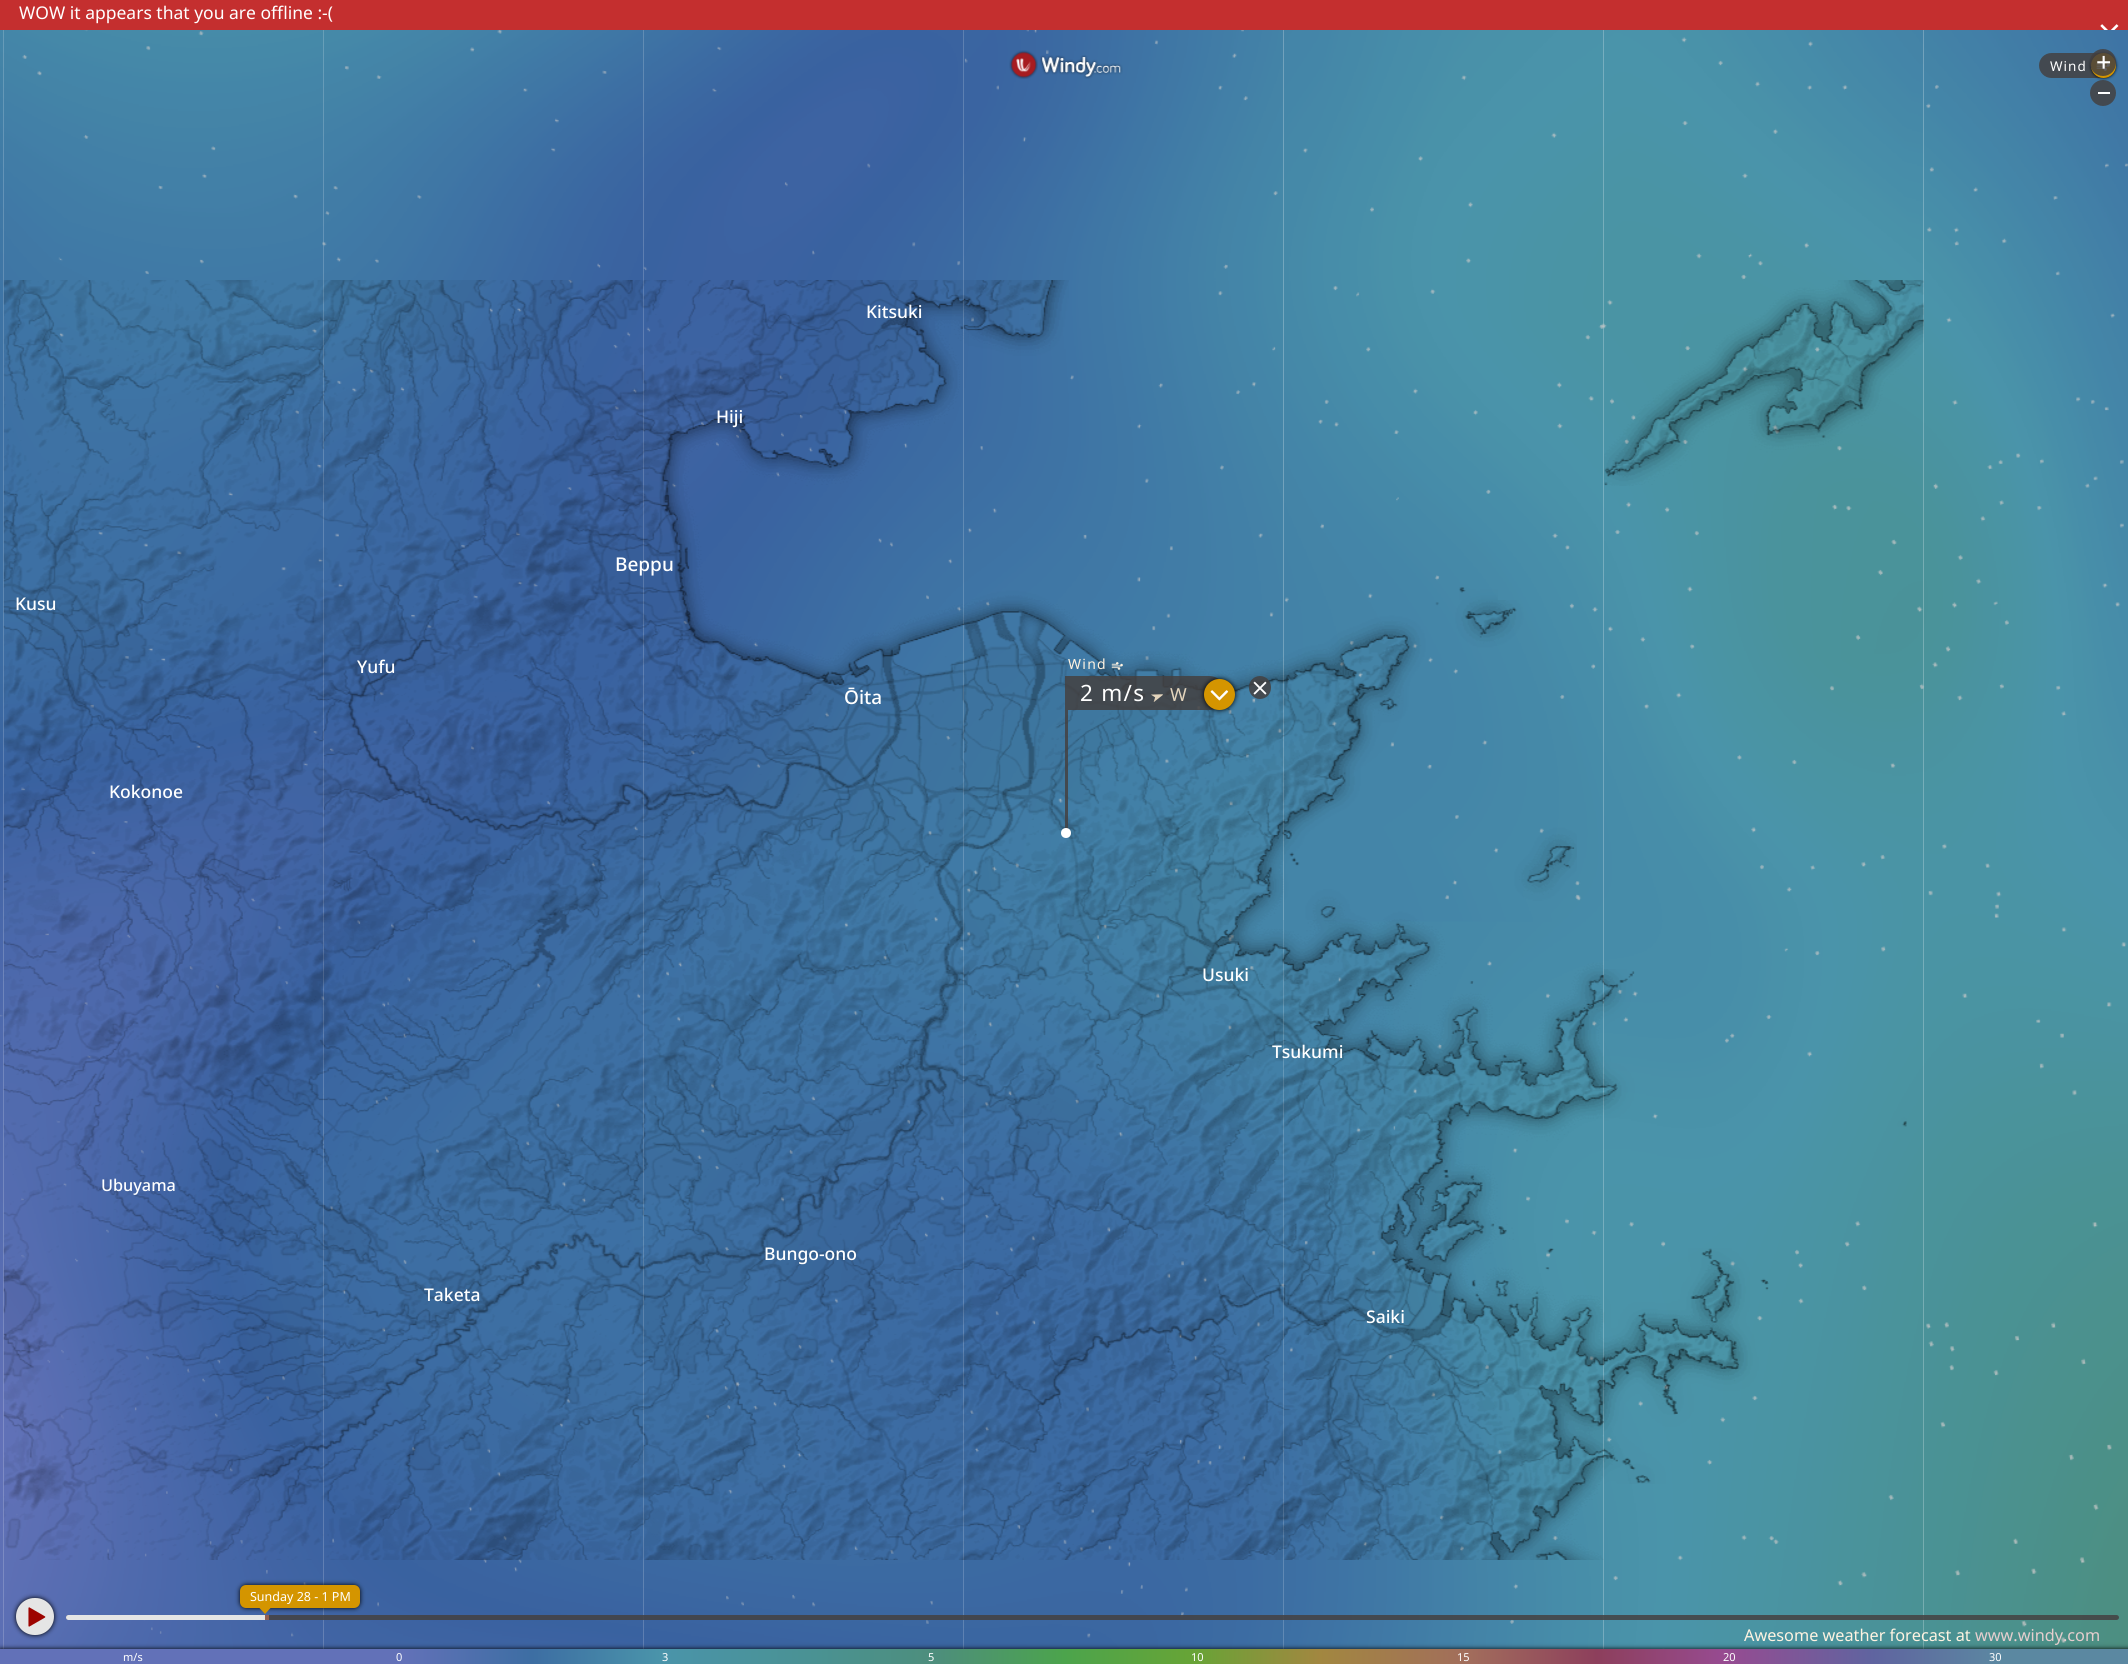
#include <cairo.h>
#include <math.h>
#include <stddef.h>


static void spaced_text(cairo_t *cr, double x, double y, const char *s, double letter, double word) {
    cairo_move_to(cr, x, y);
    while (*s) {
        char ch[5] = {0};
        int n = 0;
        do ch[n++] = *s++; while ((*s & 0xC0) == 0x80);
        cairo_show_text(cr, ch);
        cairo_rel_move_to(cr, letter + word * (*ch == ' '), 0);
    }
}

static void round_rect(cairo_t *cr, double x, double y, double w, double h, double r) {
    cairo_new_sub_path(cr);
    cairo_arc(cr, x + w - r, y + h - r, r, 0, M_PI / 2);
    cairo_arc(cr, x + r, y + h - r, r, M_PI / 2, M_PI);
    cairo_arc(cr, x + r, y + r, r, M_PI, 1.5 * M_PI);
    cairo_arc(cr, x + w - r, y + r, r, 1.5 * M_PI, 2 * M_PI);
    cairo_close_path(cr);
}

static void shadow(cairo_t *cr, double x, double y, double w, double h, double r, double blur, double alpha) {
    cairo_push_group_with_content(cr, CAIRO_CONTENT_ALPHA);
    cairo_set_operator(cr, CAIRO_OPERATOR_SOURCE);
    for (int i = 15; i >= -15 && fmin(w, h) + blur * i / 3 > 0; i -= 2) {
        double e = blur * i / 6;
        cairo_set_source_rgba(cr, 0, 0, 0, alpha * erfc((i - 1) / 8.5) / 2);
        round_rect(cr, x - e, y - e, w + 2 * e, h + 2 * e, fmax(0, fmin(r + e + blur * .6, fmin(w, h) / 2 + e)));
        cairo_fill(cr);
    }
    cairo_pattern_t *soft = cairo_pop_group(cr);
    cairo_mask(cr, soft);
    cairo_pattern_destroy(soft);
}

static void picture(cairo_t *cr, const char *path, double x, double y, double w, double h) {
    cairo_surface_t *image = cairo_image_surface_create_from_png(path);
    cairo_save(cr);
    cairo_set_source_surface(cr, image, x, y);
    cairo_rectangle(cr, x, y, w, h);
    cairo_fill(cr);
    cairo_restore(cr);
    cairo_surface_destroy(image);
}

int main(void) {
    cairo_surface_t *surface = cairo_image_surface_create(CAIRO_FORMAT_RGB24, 2128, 1664);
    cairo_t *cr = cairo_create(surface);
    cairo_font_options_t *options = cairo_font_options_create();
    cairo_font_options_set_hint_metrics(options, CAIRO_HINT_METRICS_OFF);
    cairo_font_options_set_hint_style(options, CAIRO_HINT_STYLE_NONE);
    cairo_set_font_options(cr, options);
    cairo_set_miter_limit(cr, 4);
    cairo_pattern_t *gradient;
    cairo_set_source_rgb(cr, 1, 1, 1);
    cairo_paint(cr);
    cairo_set_source_rgb(cr, 0.769, 0.184, 0.184);
    cairo_rectangle(cr, 0, 0, 2128, 30);
    cairo_fill(cr);
    cairo_select_font_face(cr, "Noto Sans", CAIRO_FONT_SLANT_NORMAL, CAIRO_FONT_WEIGHT_NORMAL);
    cairo_set_font_size(cr, 17.5);
    cairo_set_source_rgb(cr, 1, 1, 1);
    cairo_move_to(cr, 19, 19);
    cairo_show_text(cr, "WOW it appears that you are offline :-(");
    picture(cr, "img1.png", 2100, 24, 19, 6);
    picture(cr, "img9.png", 643, 30, 321, 250);
    picture(cr, "img10.png", 963, 30, 321, 250);
    picture(cr, "img8.png", 323, 30, 321, 250);
    picture(cr, "img7.png", 3, 30, 321, 250);
    picture(cr, "img6.png", 0, 30, 4, 250);
    picture(cr, "img11.png", 1284, 30, 320, 250);
    picture(cr, "img12.png", 1604, 30, 320, 250);
    picture(cr, "img13.png", 1924, 30, 204, 250);
    picture(cr, "img18.png", 963, 280, 321, 320);
    picture(cr, "img17.png", 643, 280, 321, 320);
    picture(cr, "img16.png", 323, 280, 321, 320);
    picture(cr, "img15.png", 3, 280, 321, 320);
    picture(cr, "img14.png", 0, 280, 4, 320);
    picture(cr, "img19.png", 1284, 280, 320, 320);
    picture(cr, "img20.png", 1604, 280, 320, 320);
    picture(cr, "img21.png", 1924, 280, 204, 320);
    picture(cr, "img26.png", 963, 600, 321, 320);
    picture(cr, "img25.png", 643, 600, 321, 320);
    picture(cr, "img24.png", 323, 600, 321, 320);
    picture(cr, "img23.png", 3, 600, 321, 320);
    picture(cr, "img22.png", 0, 600, 4, 320);
    picture(cr, "img27.png", 1284, 600, 320, 320);
    picture(cr, "img28.png", 1604, 600, 320, 320);
    picture(cr, "img29.png", 1924, 600, 204, 320);
    picture(cr, "img34.png", 963, 920, 321, 320);
    picture(cr, "img33.png", 643, 920, 321, 320);
    picture(cr, "img32.png", 323, 920, 321, 320);
    picture(cr, "img31.png", 3, 920, 321, 320);
    picture(cr, "img30.png", 0, 920, 4, 320);
    picture(cr, "img35.png", 1283, 920, 321, 320);
    picture(cr, "img36.png", 1604, 920, 320, 320);
    picture(cr, "img37.png", 1924, 920, 204, 320);
    picture(cr, "img42.png", 963, 1240, 321, 320);
    picture(cr, "img41.png", 643, 1240, 321, 320);
    picture(cr, "img40.png", 323, 1240, 321, 320);
    picture(cr, "img39.png", 3, 1240, 321, 320);
    picture(cr, "img38.png", 0, 1240, 4, 320);
    picture(cr, "img43.png", 1283, 1240, 321, 320);
    picture(cr, "img44.png", 1604, 1240, 320, 320);
    picture(cr, "img45.png", 1924, 1240, 204, 320);
    picture(cr, "img49.png", 643, 1560, 321, 89);
    picture(cr, "img48.png", 323, 1560, 321, 89);
    picture(cr, "img47.png", 3, 1560, 321, 89);
    picture(cr, "img46.png", 0, 1560, 4, 89);
    picture(cr, "img50.png", 963, 1560, 321, 89);
    picture(cr, "img51.png", 1283, 1560, 321, 89);
    picture(cr, "img52.png", 1604, 1560, 320, 89);
    picture(cr, "img53.png", 1924, 1560, 204, 89);
    picture(cr, "img54.png", 0, 30, 2128, 1619);
    picture(cr, "img2.png", 1009, 50, 29, 29);
    picture(cr, "img3.png", 1040, 55, 83, 24);
    cairo_set_source_rgba(cr, 0.267, 0.255, 0.255, 0.84);
    round_rect(cr, 2039, 53, 77, 25, 12.5);
    cairo_fill(cr);
    cairo_set_font_size(cr, 13.5);
    cairo_set_source_rgb(cr, 1, 1, 1);
    spaced_text(cr, 2050, 71, "Wind", 1, 0);
    cairo_set_source_rgb(cr, 0, 0, 0);
    shadow(cr, 2091, 53, 25, 25, 12.5, 1.5, 1);
    cairo_set_source_rgb(cr, 0.831, 0.584, 0);
    cairo_arc(cr, 2103.5, 65.5, 12.5, 0, 2 * M_PI);
    cairo_fill(cr);
    picture(cr, "img4.png", 2096, 61, 14, 10);
    cairo_set_source_rgba(cr, 0.267, 0.255, 0.255, 0.84);
    round_rect(cr, 2090, 49, 26, 27, 13);
    cairo_fill(cr);
    picture(cr, "img5.png", 2097, 55, 14, 14);
    cairo_arc(cr, 2103, 93, 13, 0, 2 * M_PI);
    cairo_fill(cr);
    cairo_set_source_rgb(cr, 1, 1, 1);
    cairo_rectangle(cr, 2098, 92, 12, 2);
    cairo_fill(cr);
    picture(cr, "img58.png", 963, 280, 106, 320);
    picture(cr, "img57.png", 643, 280, 321, 320);
    picture(cr, "img56.png", 323, 280, 321, 320);
    picture(cr, "img55.png", 3, 280, 321, 320);
    picture(cr, "img59.png", 1604, 280, 320, 206);
    picture(cr, "img60.png", 1459, 587, 39, 13);
    picture(cr, "img64.png", 963, 600, 321, 320);
    picture(cr, "img63.png", 643, 600, 321, 320);
    picture(cr, "img62.png", 323, 600, 321, 320);
    picture(cr, "img61.png", 3, 600, 321, 320);
    picture(cr, "img65.png", 1283, 600, 294, 320);
    picture(cr, "img69.png", 963, 920, 321, 320);
    picture(cr, "img68.png", 643, 920, 321, 320);
    picture(cr, "img67.png", 323, 920, 321, 320);
    picture(cr, "img66.png", 3, 920, 321, 320);
    picture(cr, "img70.png", 1283, 920, 321, 320);
    picture(cr, "img71.png", 1603, 969, 304, 158);
    picture(cr, "img75.png", 963, 1240, 321, 320);
    picture(cr, "img74.png", 643, 1240, 321, 320);
    picture(cr, "img73.png", 323, 1240, 321, 320);
    picture(cr, "img72.png", 3, 1240, 321, 320);
    picture(cr, "img76.png", 1283, 1240, 321, 320);
    picture(cr, "img77.png", 1603, 1248, 166, 236);
    cairo_select_font_face(cr, "Noto Sans Medium", CAIRO_FONT_SLANT_NORMAL, CAIRO_FONT_WEIGHT_NORMAL);
    cairo_set_font_size(cr, 17.5);
    cairo_move_to(cr, 866, 318);
    cairo_show_text(cr, "Kitsuki");
    cairo_move_to(cr, 716, 423);
    cairo_show_text(cr, "Hiji");
    cairo_set_font_size(cr, 19);
    cairo_move_to(cr, 615, 571);
    cairo_show_text(cr, "Beppu");
    cairo_set_font_size(cr, 17.5);
    cairo_move_to(cr, 15, 610);
    cairo_show_text(cr, "Kusu");
    cairo_move_to(cr, 109, 798);
    cairo_show_text(cr, "Kokonoe");
    cairo_move_to(cr, 357, 673);
    cairo_show_text(cr, "Yufu");
    cairo_set_font_size(cr, 19);
    cairo_move_to(cr, 844, 704);
    cairo_show_text(cr, "Ōita");
    cairo_set_font_size(cr, 17.5);
    cairo_move_to(cr, 1202, 981);
    cairo_show_text(cr, "Usuki");
    cairo_move_to(cr, 1272, 1058);
    cairo_show_text(cr, "Tsukumi");
    cairo_set_font_size(cr, 16.25);
    cairo_move_to(cr, 101, 1191);
    cairo_show_text(cr, "Ubuyama");
    cairo_set_font_size(cr, 17.5);
    cairo_move_to(cr, 764, 1260);
    cairo_show_text(cr, "Bungo-ono");
    cairo_move_to(cr, 424, 1301);
    cairo_show_text(cr, "Taketa");
    cairo_move_to(cr, 1366, 1323);
    cairo_show_text(cr, "Saiki");
    cairo_set_source_rgba(cr, 0.267, 0.255, 0.255, 0.84);
    cairo_rectangle(cr, 1065, 676, 3, 157);
    cairo_fill(cr);
    cairo_set_source_rgb(cr, 1, 1, 1);
    cairo_arc(cr, 1066, 833, 5, 0, 2 * M_PI);
    cairo_fill(cr);
    cairo_set_source_rgba(cr, 0.267, 0.255, 0.255, 0.84);
    cairo_new_path(cr);
    cairo_move_to(cr, 1068, 676);
    cairo_line_to(cr, 1209, 676);
    cairo_curve_to(cr, 1218.5, 676, 1226, 683.5, 1226, 693);
    cairo_curve_to(cr, 1226, 702.5, 1218.5, 710, 1209, 710);
    cairo_line_to(cr, 1068, 710);
    cairo_close_path(cr);
    cairo_fill(cr);
    cairo_select_font_face(cr, "Noto Sans", CAIRO_FONT_SLANT_NORMAL, CAIRO_FONT_WEIGHT_NORMAL);
    cairo_set_font_size(cr, 14);
    cairo_set_source_rgb(cr, 1, 0.953, 0.882);
    spaced_text(cr, 1068, 669, "Wind", 1.25, 0);
    picture(cr, "img78.png", 1111, 662, 12, 8);
    cairo_set_font_size(cr, 22.5);
    cairo_set_source_rgb(cr, 1, 1, 1);
    spaced_text(cr, 1080, 701, "2 m/s", 1.25, 0);
    picture(cr, "img79.png", 1151, 694, 12, 8);
    cairo_set_font_size(cr, 18);
    cairo_set_source_rgb(cr, 0.894, 0.835, 0.741);
    spaced_text(cr, 1170, 701, "W", 1.25, 0);
    cairo_set_source_rgb(cr, 0, 0, 0);
    shadow(cr, 1204, 679, 31, 31, 15.5, 2.5, 1);
    cairo_set_source_rgb(cr, 0.831, 0.584, 0);
    cairo_arc(cr, 1219.5, 694.5, 15.5, 0, 2 * M_PI);
    cairo_fill(cr);
    picture(cr, "img80.png", 1210, 690, 19, 11);
    cairo_set_source_rgba(cr, 0.267, 0.255, 0.255, 0.84);
    round_rect(cr, 1249, 676, 22, 23, 11);
    cairo_fill(cr);
    picture(cr, "img81.png", 1253, 681, 14, 14);
    cairo_set_source_rgb(cr, 0, 0, 0);
    shadow(cr, 16, 1598, 38, 37, 18.5, 2.5, 1);
    cairo_set_source_rgb(cr, 0.898, 0.898, 0.898);
    round_rect(cr, 16, 1598, 38, 37, 18.5);
    cairo_fill(cr);
    picture(cr, "img82.png", 28, 1607, 18, 20);
    cairo_set_source_rgb(cr, 0, 0, 0);
    shadow(cr, 240, 1585, 120, 23, 6, 2.5, 1);
    cairo_set_source_rgb(cr, 0.831, 0.584, 0);
    round_rect(cr, 240, 1585, 120, 23, 6);
    cairo_fill(cr);
    cairo_set_font_size(cr, 12.5);
    cairo_set_source_rgb(cr, 1, 1, 1);
    cairo_move_to(cr, 250, 1601);
    cairo_show_text(cr, "Sunday 28 - 1 PM");
    cairo_set_source_rgb(cr, 0.831, 0.584, 0);
    cairo_new_path(cr);
    cairo_move_to(cr, 259, 1607.5);
    cairo_line_to(cr, 271, 1607.5);
    cairo_line_to(cr, 265, 1614);
    cairo_close_path(cr);
    cairo_fill(cr);
    cairo_set_source_rgba(cr, 0.267, 0.255, 0.255, 0.84);
    round_rect(cr, 66, 1615, 2053, 5, 2.5);
    cairo_fill(cr);
    cairo_set_source_rgb(cr, 0.898, 0.898, 0.898);
    cairo_new_path(cr);
    cairo_move_to(cr, 68.5, 1615);
    cairo_line_to(cr, 265, 1615);
    cairo_line_to(cr, 265, 1620);
    cairo_line_to(cr, 68.5, 1620);
    cairo_curve_to(cr, 67, 1620, 66, 1619, 66, 1617.5);
    cairo_curve_to(cr, 66, 1616, 67, 1615, 68.5, 1615);
    cairo_close_path(cr);
    cairo_fill(cr);
    cairo_set_source_rgb(cr, 0.58, 0.376, 0.318);
    cairo_rectangle(cr, 265, 1615, 4, 5);
    cairo_fill(cr);
    cairo_set_source_rgb(cr, 0, 0, 0);
    shadow(cr, 0, 1649, 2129, 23, 0, 2.5, 1);
    cairo_set_font_size(cr, 16.25);
    cairo_set_source_rgb(cr, 1, 0.953, 0.882);
    cairo_move_to(cr, 1744, 1641);
    cairo_show_text(cr, "Awesome weather forecast at");
    cairo_set_source_rgb(cr, 0.902, 0.808, 0.808);
    cairo_move_to(cr, 1975, 1641);
    cairo_show_text(cr, "www.windy.com");
    gradient = cairo_pattern_create_linear(0, 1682, 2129, 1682);
    cairo_pattern_add_color_stop_rgba(gradient, 0, 0.384, 0.443, 0.722, 1);
    cairo_pattern_add_color_stop_rgba(gradient, 0.19, 0.384, 0.443, 0.722, 1);
    cairo_pattern_add_color_stop_rgba(gradient, 0.25, 0.239, 0.431, 0.639, 1);
    cairo_pattern_add_color_stop_rgba(gradient, 0.31, 0.29, 0.58, 0.667, 1);
    cairo_pattern_add_color_stop_rgba(gradient, 0.38, 0.29, 0.573, 0.58, 1);
    cairo_pattern_add_color_stop_rgba(gradient, 0.44, 0.302, 0.557, 0.486, 1);
    cairo_pattern_add_color_stop_rgba(gradient, 0.5, 0.298, 0.643, 0.298, 1);
    cairo_pattern_add_color_stop_rgba(gradient, 0.56, 0.404, 0.643, 0.212, 1);
    cairo_pattern_add_color_stop_rgba(gradient, 0.62, 0.635, 0.529, 0.251, 1);
    cairo_pattern_add_color_stop_rgba(gradient, 0.69, 0.635, 0.427, 0.361, 1);
    cairo_pattern_add_color_stop_rgba(gradient, 0.75, 0.553, 0.247, 0.361, 1);
    cairo_pattern_add_color_stop_rgba(gradient, 0.81, 0.592, 0.294, 0.569, 1);
    cairo_pattern_add_color_stop_rgba(gradient, 0.88, 0.373, 0.392, 0.627, 1);
    cairo_pattern_add_color_stop_rgba(gradient, 0.94, 0.357, 0.533, 0.631, 1);
    cairo_pattern_add_color_stop_rgba(gradient, 1, 0.357, 0.533, 0.631, 1);
    cairo_set_source(cr, gradient);
    cairo_pattern_destroy(gradient);
    cairo_rectangle(cr, 0, 1649, 2128, 15);
    cairo_fill(cr);
    cairo_set_font_size(cr, 11);
    cairo_set_source_rgb(cr, 1, 1, 1);
    cairo_move_to(cr, 123, 1661);
    cairo_show_text(cr, "m/s");
    cairo_move_to(cr, 396, 1661);
    cairo_show_text(cr, "0");
    cairo_move_to(cr, 662, 1661);
    cairo_show_text(cr, "3");
    cairo_move_to(cr, 928, 1661);
    cairo_show_text(cr, "5");
    cairo_move_to(cr, 1191, 1661);
    cairo_show_text(cr, "10");
    cairo_move_to(cr, 1457, 1661);
    cairo_show_text(cr, "15");
    cairo_move_to(cr, 1723, 1661);
    cairo_show_text(cr, "20");
    cairo_move_to(cr, 1989, 1661);
    cairo_show_text(cr, "30");
    cairo_surface_write_to_png(surface, "page.png");
    cairo_font_options_destroy(options);
    cairo_destroy(cr);
    cairo_surface_destroy(surface);
    return 0;
}
